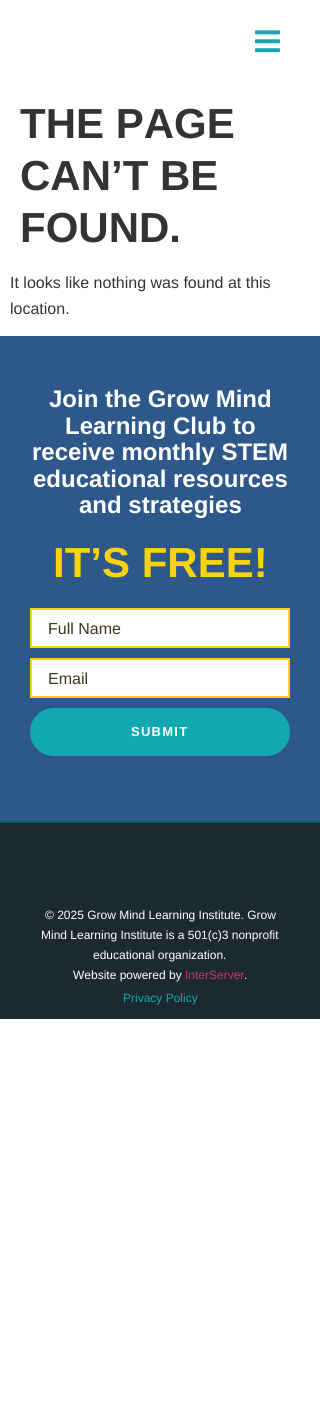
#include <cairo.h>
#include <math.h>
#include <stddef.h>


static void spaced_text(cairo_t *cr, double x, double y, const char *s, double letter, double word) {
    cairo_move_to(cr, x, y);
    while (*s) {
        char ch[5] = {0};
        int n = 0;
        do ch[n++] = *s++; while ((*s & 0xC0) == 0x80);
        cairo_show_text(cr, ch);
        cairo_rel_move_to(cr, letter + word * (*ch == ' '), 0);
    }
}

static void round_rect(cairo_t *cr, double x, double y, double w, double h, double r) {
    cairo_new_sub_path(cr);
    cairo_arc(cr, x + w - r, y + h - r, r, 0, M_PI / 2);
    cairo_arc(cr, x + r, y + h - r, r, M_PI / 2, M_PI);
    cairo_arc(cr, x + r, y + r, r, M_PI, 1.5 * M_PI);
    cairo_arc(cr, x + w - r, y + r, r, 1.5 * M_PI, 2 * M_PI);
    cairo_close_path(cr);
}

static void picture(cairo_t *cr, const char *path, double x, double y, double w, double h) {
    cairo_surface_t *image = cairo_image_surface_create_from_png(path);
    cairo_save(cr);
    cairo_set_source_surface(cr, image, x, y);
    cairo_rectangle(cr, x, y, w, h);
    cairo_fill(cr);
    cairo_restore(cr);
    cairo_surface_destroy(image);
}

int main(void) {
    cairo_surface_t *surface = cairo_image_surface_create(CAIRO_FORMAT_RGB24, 320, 1414);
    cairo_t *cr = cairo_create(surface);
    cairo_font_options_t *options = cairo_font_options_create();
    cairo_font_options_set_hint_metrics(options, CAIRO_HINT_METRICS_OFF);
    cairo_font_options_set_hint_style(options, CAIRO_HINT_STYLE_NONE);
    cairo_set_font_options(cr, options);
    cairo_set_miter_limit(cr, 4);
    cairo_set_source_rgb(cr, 1, 1, 1);
    cairo_paint(cr);
    picture(cr, "img1.png", 255, 30, 25, 23);
    cairo_select_font_face(cr, "Liberation Sans", CAIRO_FONT_SLANT_NORMAL, CAIRO_FONT_WEIGHT_BOLD);
    cairo_set_font_size(cr, 42);
    cairo_set_source_rgb(cr, 0.2, 0.2, 0.2);
    cairo_move_to(cr, 20, 138);
    cairo_show_text(cr, "THE PAGE");
    cairo_move_to(cr, 20, 190);
    cairo_show_text(cr, "CAN’T BE");
    cairo_move_to(cr, 20, 242);
    cairo_show_text(cr, "FOUND.");
    cairo_select_font_face(cr, "Liberation Sans", CAIRO_FONT_SLANT_NORMAL, CAIRO_FONT_WEIGHT_NORMAL);
    cairo_set_font_size(cr, 16);
    cairo_move_to(cr, 10, 288);
    cairo_show_text(cr, "It looks like nothing was found at this");
    cairo_move_to(cr, 10, 314);
    cairo_show_text(cr, "location.");
    cairo_set_source_rgb(cr, 0.18, 0.345, 0.541);
    cairo_rectangle(cr, 0, 336, 320, 485);
    cairo_fill(cr);
    cairo_select_font_face(cr, "Liberation Sans", CAIRO_FONT_SLANT_NORMAL, CAIRO_FONT_WEIGHT_BOLD);
    cairo_set_font_size(cr, 24);
    cairo_set_source_rgb(cr, 1, 1, 1);
    cairo_move_to(cr, 49, 407);
    cairo_show_text(cr, "Join the Grow Mind");
    cairo_move_to(cr, 65, 434);
    cairo_show_text(cr, "Learning Club to");
    cairo_move_to(cr, 32, 460);
    cairo_show_text(cr, "receive monthly STEM");
    cairo_move_to(cr, 33, 487);
    cairo_show_text(cr, "educational resources");
    cairo_move_to(cr, 79, 513);
    cairo_show_text(cr, "and strategies");
    cairo_set_font_size(cr, 42);
    cairo_set_source_rgb(cr, 0.984, 0.827, 0.051);
    cairo_move_to(cr, 53, 577);
    cairo_show_text(cr, "IT’S FREE!");
    cairo_set_source_rgb(cr, 1, 1, 1);
    cairo_rectangle(cr, 31, 609, 258, 38);
    cairo_fill_preserve(cr);
    cairo_set_source_rgb(cr, 0.984, 0.827, 0.051);
    cairo_stroke(cr);
    cairo_select_font_face(cr, "Liberation Sans", CAIRO_FONT_SLANT_NORMAL, CAIRO_FONT_WEIGHT_NORMAL);
    cairo_set_font_size(cr, 16);
    cairo_set_source_rgb(cr, 0.247, 0.208, 0.129);
    cairo_move_to(cr, 48, 634);
    cairo_show_text(cr, "Full Name");
    cairo_set_source_rgb(cr, 1, 1, 1);
    cairo_rectangle(cr, 31, 659, 258, 38);
    cairo_fill_preserve(cr);
    cairo_set_source_rgb(cr, 0.984, 0.827, 0.051);
    cairo_stroke(cr);
    cairo_set_source_rgb(cr, 0.247, 0.208, 0.129);
    cairo_move_to(cr, 48, 684);
    cairo_show_text(cr, "Email");
    cairo_set_source_rgb(cr, 0.071, 0.659, 0.698);
    round_rect(cr, 30, 708, 260, 48, 24);
    cairo_fill(cr);
    cairo_select_font_face(cr, "Liberation Sans", CAIRO_FONT_SLANT_NORMAL, CAIRO_FONT_WEIGHT_BOLD);
    cairo_set_font_size(cr, 13);
    cairo_set_source_rgb(cr, 1, 1, 1);
    spaced_text(cr, 131, 736, "SUBMIT", 1.25, 0);
    cairo_set_source_rgb(cr, 0.11, 0.161, 0.188);
    cairo_rectangle(cr, 0, 823, 320, 196);
    cairo_fill(cr);
    cairo_set_source_rgb(cr, 0.02, 0.361, 0.42);
    cairo_rectangle(cr, 0, 821, 320, 2);
    cairo_fill(cr);
    cairo_select_font_face(cr, "Liberation Sans", CAIRO_FONT_SLANT_NORMAL, CAIRO_FONT_WEIGHT_NORMAL);
    cairo_set_font_size(cr, 12);
    cairo_set_source_rgb(cr, 1, 1, 1);
    cairo_move_to(cr, 45, 919);
    cairo_show_text(cr, "© 2025 Grow Mind Learning Institute. Grow");
    cairo_move_to(cr, 41, 939);
    cairo_show_text(cr, "Mind Learning Institute is a 501(c)3 nonprofit");
    cairo_move_to(cr, 93, 959);
    cairo_show_text(cr, "educational organization.");
    cairo_move_to(cr, 73, 979);
    cairo_show_text(cr, "Website powered by");
    cairo_set_source_rgb(cr, 0.8, 0.2, 0.4);
    cairo_move_to(cr, 185, 979);
    cairo_show_text(cr, "InterServer");
    cairo_set_source_rgb(cr, 1, 1, 1);
    cairo_move_to(cr, 244, 979);
    cairo_show_text(cr, ".");
    cairo_set_source_rgb(cr, 0.071, 0.659, 0.698);
    cairo_move_to(cr, 123, 1002);
    cairo_show_text(cr, "Privacy Policy");
    cairo_surface_write_to_png(surface, "page.png");
    cairo_font_options_destroy(options);
    cairo_destroy(cr);
    cairo_surface_destroy(surface);
    return 0;
}
